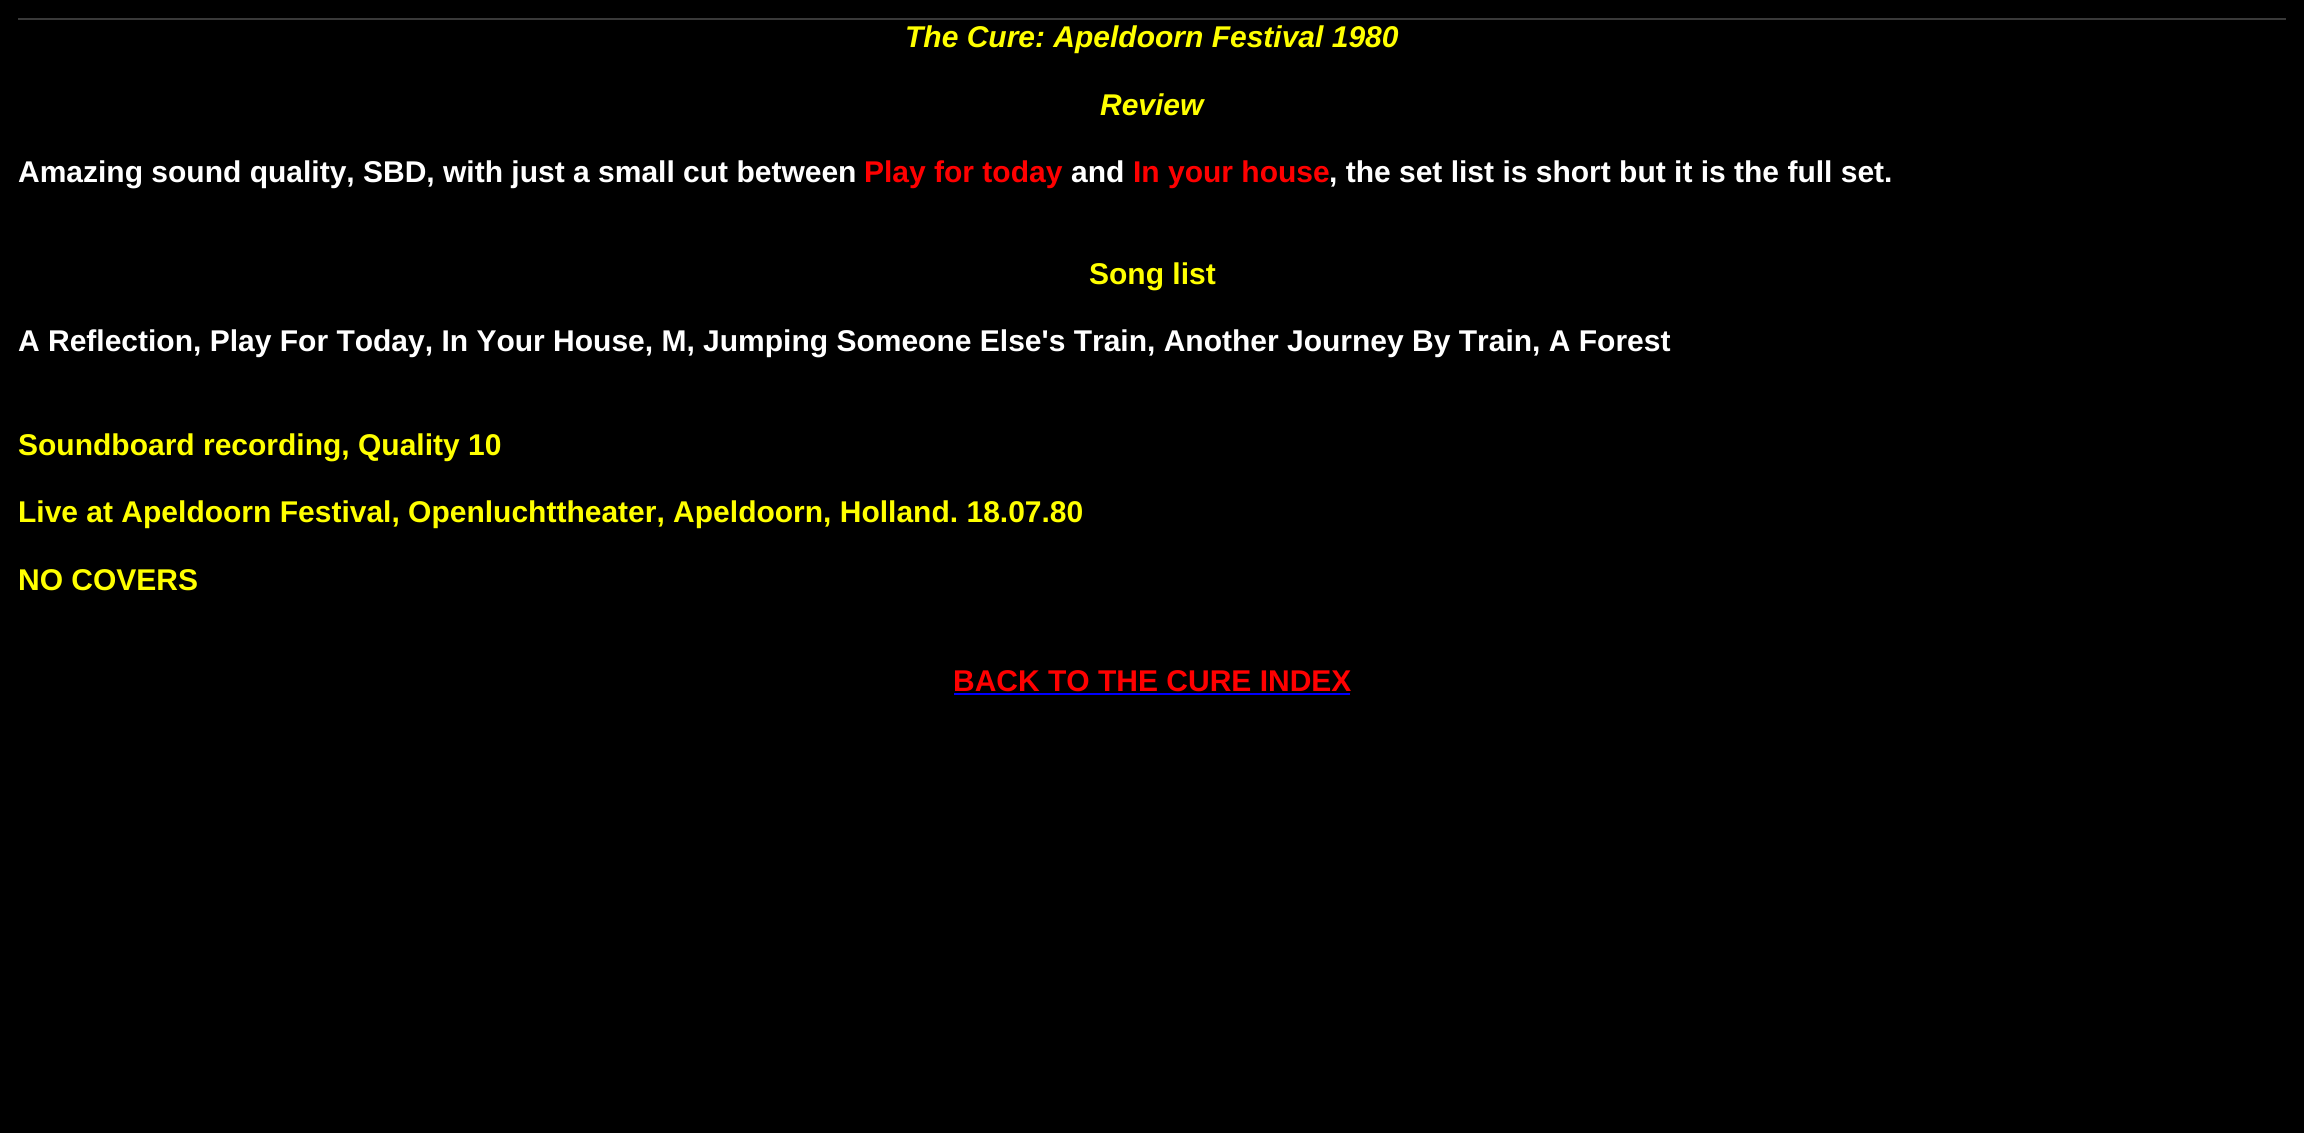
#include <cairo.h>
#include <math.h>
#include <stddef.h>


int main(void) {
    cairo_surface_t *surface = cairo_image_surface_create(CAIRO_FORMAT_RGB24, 2304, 1133);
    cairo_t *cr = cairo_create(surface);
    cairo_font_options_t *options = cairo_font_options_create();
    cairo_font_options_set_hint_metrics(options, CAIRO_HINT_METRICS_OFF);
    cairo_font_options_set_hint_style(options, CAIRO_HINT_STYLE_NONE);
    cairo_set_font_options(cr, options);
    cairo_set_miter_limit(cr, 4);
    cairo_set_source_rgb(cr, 0, 0, 0);
    cairo_paint(cr);
    cairo_set_source_rgb(cr, 0.224, 0.224, 0.224);
    cairo_rectangle(cr, 18, 18, 2268, 2);
    cairo_fill(cr);
    cairo_select_font_face(cr, "Liberation Sans", CAIRO_FONT_SLANT_ITALIC, CAIRO_FONT_WEIGHT_BOLD);
    cairo_set_font_size(cr, 30);
    cairo_set_source_rgb(cr, 1, 1, 0);
    cairo_move_to(cr, 905, 47);
    cairo_show_text(cr, "The Cure: Apeldoorn Festival 1980");
    cairo_move_to(cr, 1100, 115);
    cairo_show_text(cr, "Review");
    cairo_select_font_face(cr, "Liberation Sans", CAIRO_FONT_SLANT_NORMAL, CAIRO_FONT_WEIGHT_BOLD);
    cairo_set_source_rgb(cr, 1, 1, 1);
    cairo_move_to(cr, 18, 182);
    cairo_show_text(cr, "Amazing sound quality, SBD, with just a small cut between");
    cairo_set_source_rgb(cr, 1, 0, 0);
    cairo_move_to(cr, 864, 182);
    cairo_show_text(cr, "Play for today");
    cairo_set_source_rgb(cr, 1, 1, 1);
    cairo_move_to(cr, 1071, 182);
    cairo_show_text(cr, "and");
    cairo_set_source_rgb(cr, 1, 0, 0);
    cairo_move_to(cr, 1133, 182);
    cairo_show_text(cr, "In your house");
    cairo_set_source_rgb(cr, 1, 1, 1);
    cairo_move_to(cr, 1329, 182);
    cairo_show_text(cr, ", the set list is short but it is the full set.");
    cairo_set_source_rgb(cr, 1, 1, 0);
    cairo_move_to(cr, 1089, 284);
    cairo_show_text(cr, "Song list");
    cairo_set_source_rgb(cr, 1, 1, 1);
    cairo_move_to(cr, 18, 351);
    cairo_show_text(cr, "A Reflection, Play For Today, In Your House, M, Jumping Someone Else's Train, Another Journey By Train, A Forest");
    cairo_set_source_rgb(cr, 1, 1, 0);
    cairo_move_to(cr, 18, 455);
    cairo_show_text(cr, "Soundboard recording, Quality 10");
    cairo_move_to(cr, 18, 522);
    cairo_show_text(cr, "Live at Apeldoorn Festival, Openluchttheater, Apeldoorn, Holland. 18.07.80");
    cairo_move_to(cr, 18, 590);
    cairo_show_text(cr, "NO COVERS");
    cairo_set_source_rgb(cr, 1, 0, 0);
    cairo_move_to(cr, 953, 691);
    cairo_show_text(cr, "BACK TO THE CURE INDEX");
    cairo_set_source_rgb(cr, 0, 0, 1);
    cairo_rectangle(cr, 954, 693, 396, 2);
    cairo_fill(cr);
    cairo_surface_write_to_png(surface, "page.png");
    cairo_font_options_destroy(options);
    cairo_destroy(cr);
    cairo_surface_destroy(surface);
    return 0;
}
